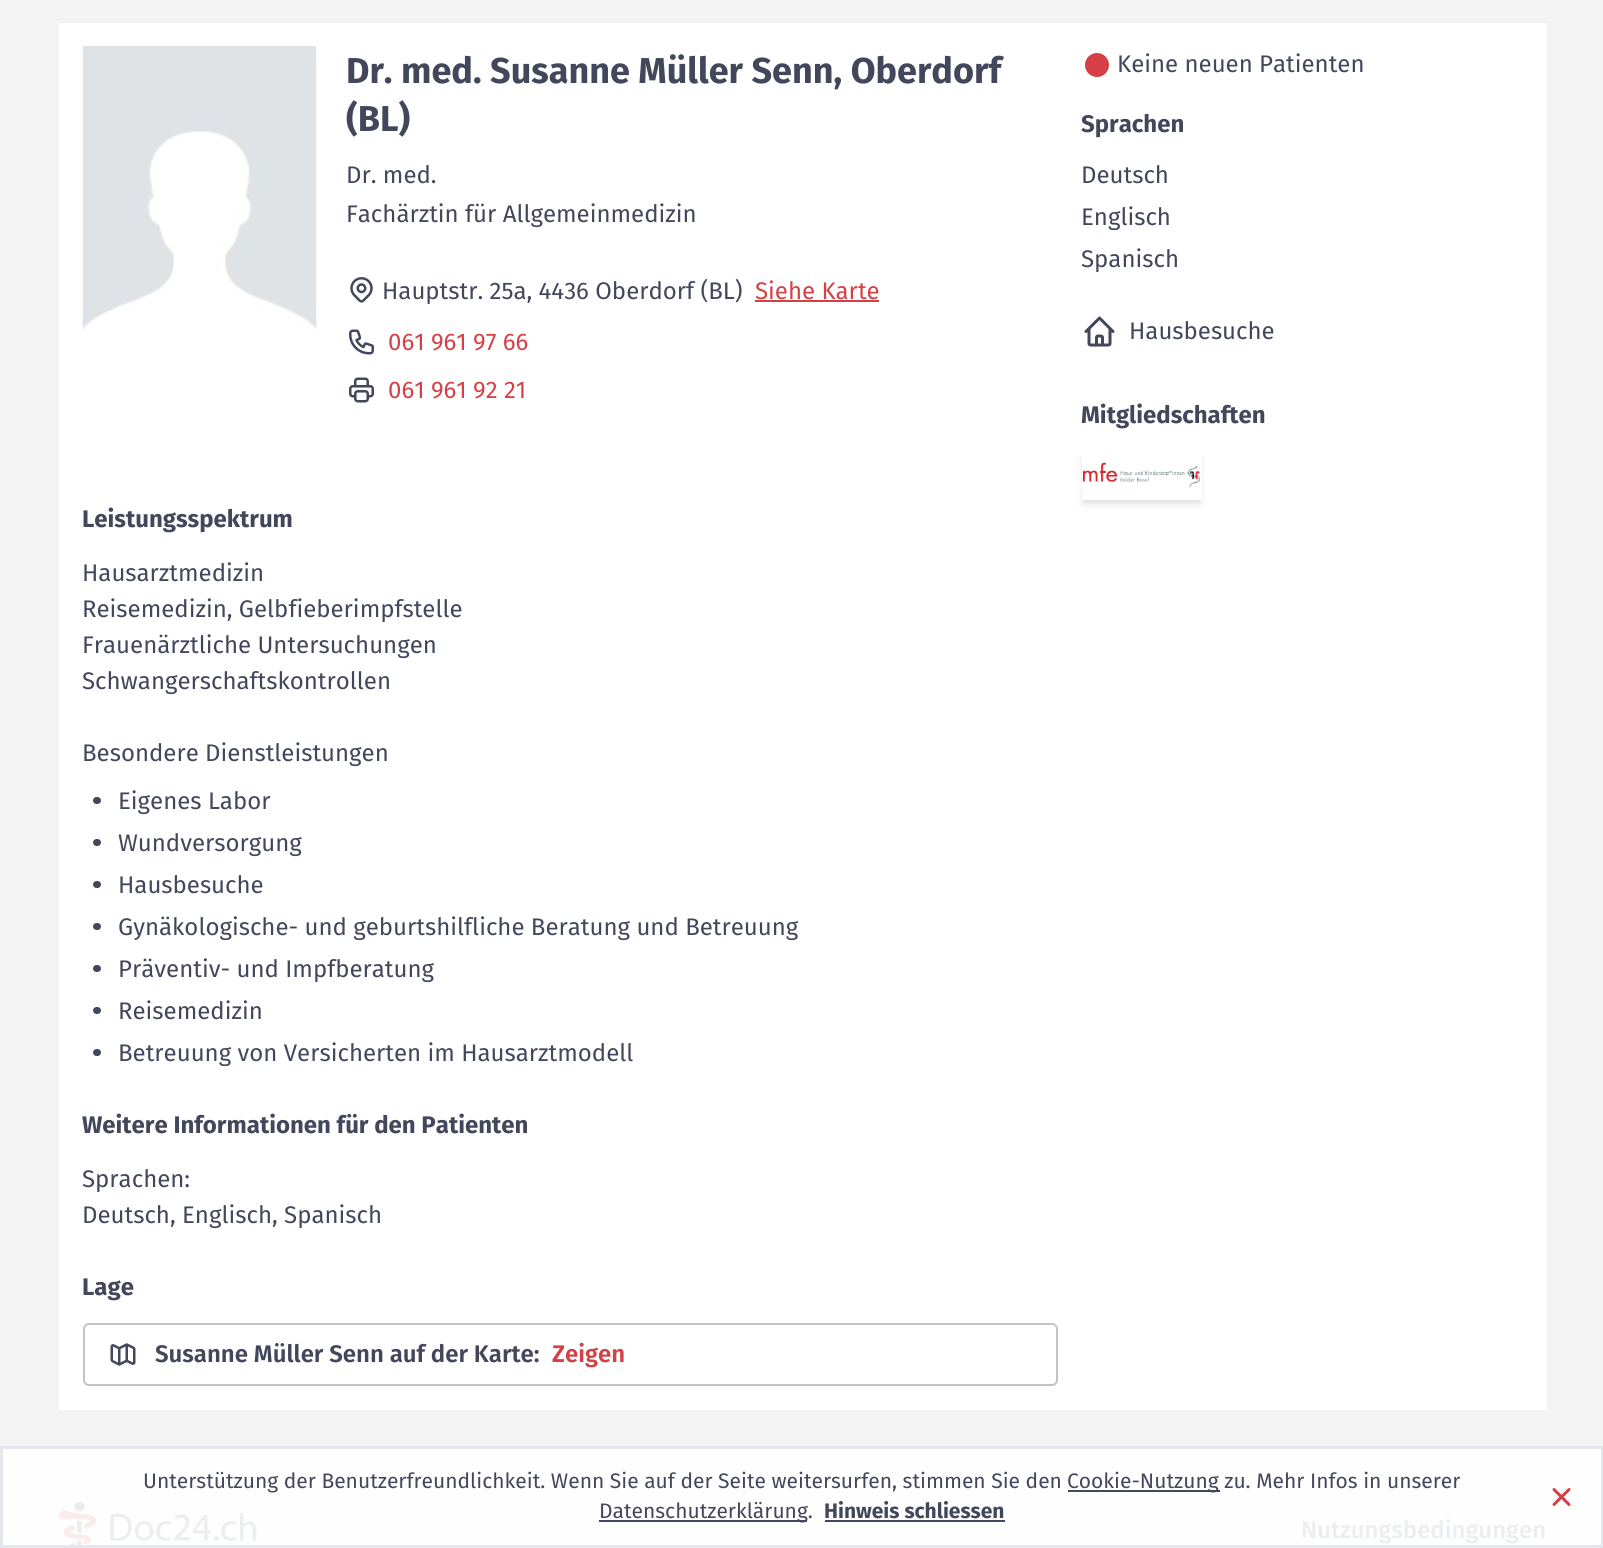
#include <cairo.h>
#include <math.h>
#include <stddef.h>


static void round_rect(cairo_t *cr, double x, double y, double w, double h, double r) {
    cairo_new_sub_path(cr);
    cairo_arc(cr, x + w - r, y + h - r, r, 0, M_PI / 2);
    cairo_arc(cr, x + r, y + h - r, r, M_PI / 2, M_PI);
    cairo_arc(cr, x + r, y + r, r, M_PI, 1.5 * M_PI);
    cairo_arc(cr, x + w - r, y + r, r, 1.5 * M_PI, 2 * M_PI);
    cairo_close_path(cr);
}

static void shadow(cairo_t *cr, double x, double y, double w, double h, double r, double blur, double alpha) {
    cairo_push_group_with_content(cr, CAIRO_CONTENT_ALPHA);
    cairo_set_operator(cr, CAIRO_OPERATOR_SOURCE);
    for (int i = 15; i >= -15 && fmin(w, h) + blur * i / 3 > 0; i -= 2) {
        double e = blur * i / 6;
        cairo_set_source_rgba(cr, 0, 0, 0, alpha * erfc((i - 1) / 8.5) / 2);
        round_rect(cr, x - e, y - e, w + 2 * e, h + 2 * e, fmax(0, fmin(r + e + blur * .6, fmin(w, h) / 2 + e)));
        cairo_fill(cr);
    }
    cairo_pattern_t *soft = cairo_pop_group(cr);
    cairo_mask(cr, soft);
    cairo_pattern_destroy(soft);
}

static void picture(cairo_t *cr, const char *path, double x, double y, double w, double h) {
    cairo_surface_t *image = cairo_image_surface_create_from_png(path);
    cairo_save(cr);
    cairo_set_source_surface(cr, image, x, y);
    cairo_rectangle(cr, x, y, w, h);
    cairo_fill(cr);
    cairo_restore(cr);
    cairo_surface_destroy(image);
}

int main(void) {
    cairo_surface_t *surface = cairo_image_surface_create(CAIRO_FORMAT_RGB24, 1603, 1548);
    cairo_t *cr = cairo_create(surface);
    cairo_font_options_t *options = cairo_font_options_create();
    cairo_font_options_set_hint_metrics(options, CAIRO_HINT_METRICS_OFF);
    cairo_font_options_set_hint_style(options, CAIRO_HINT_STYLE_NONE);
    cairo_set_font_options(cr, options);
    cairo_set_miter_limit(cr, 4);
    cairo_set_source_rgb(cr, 0.953, 0.953, 0.953);
    cairo_paint(cr);
    cairo_set_source_rgb(cr, 0.996, 0.996, 0.996);
    cairo_rectangle(cr, 3, 1449, 1598, 96);
    cairo_fill(cr);
    cairo_set_source_rgb(cr, 1, 1, 1);
    cairo_rectangle(cr, 59, 23, 1488, 1387);
    cairo_fill(cr);
    picture(cr, "img1.png", 82, 46, 235, 284);
    cairo_select_font_face(cr, "Fira Sans", CAIRO_FONT_SLANT_NORMAL, CAIRO_FONT_WEIGHT_BOLD);
    cairo_set_font_size(cr, 36);
    cairo_set_source_rgb(cr, 0.259, 0.278, 0.357);
    cairo_move_to(cr, 346, 83);
    cairo_show_text(cr, "Dr. med. Susanne Müller Senn, Oberdorf");
    cairo_move_to(cr, 346, 131);
    cairo_show_text(cr, "(BL)");
    cairo_select_font_face(cr, "Fira Sans", CAIRO_FONT_SLANT_NORMAL, CAIRO_FONT_WEIGHT_NORMAL);
    cairo_set_font_size(cr, 24);
    cairo_move_to(cr, 346, 183);
    cairo_show_text(cr, "Dr. med.");
    cairo_move_to(cr, 346, 222);
    cairo_show_text(cr, "Fachärztin für Allgemeinmedizin");
    picture(cr, "img2.png", 350, 277, 23, 26);
    cairo_move_to(cr, 382, 299);
    cairo_show_text(cr, "Hauptstr. 25a, 4436 Oberdorf (BL)");
    cairo_set_source_rgb(cr, 0.831, 0.251, 0.271);
    cairo_move_to(cr, 755, 299);
    cairo_show_text(cr, "Siehe Karte");
    cairo_rectangle(cr, 755, 300, 124, 2);
    cairo_fill(cr);
    picture(cr, "img3.png", 349, 329, 25, 26);
    cairo_move_to(cr, 388, 350);
    cairo_show_text(cr, "061 961 97 66");
    picture(cr, "img4.png", 349, 377, 25, 26);
    cairo_move_to(cr, 388, 398);
    cairo_show_text(cr, "061 961 92 21");
    cairo_select_font_face(cr, "Fira Sans", CAIRO_FONT_SLANT_NORMAL, CAIRO_FONT_WEIGHT_BOLD);
    cairo_set_source_rgb(cr, 0.259, 0.278, 0.357);
    cairo_move_to(cr, 82, 527);
    cairo_show_text(cr, "Leistungsspektrum");
    cairo_select_font_face(cr, "Fira Sans", CAIRO_FONT_SLANT_NORMAL, CAIRO_FONT_WEIGHT_NORMAL);
    cairo_move_to(cr, 82, 581);
    cairo_show_text(cr, "Hausarztmedizin");
    cairo_move_to(cr, 82, 617);
    cairo_show_text(cr, "Reisemedizin, Gelbfieberimpfstelle");
    cairo_move_to(cr, 82, 653);
    cairo_show_text(cr, "Frauenärztliche Untersuchungen");
    cairo_move_to(cr, 82, 689);
    cairo_show_text(cr, "Schwangerschaftskontrollen");
    cairo_move_to(cr, 82, 761);
    cairo_show_text(cr, "Besondere Dienstleistungen");
    round_rect(cr, 93, 797, 8, 7, 3.5);
    cairo_fill(cr);
    cairo_move_to(cr, 118, 809);
    cairo_show_text(cr, "Eigenes Labor");
    round_rect(cr, 93, 839, 8, 7, 3.5);
    cairo_fill(cr);
    cairo_move_to(cr, 118, 851);
    cairo_show_text(cr, "Wundversorgung");
    round_rect(cr, 93, 881, 8, 7, 3.5);
    cairo_fill(cr);
    cairo_move_to(cr, 118, 893);
    cairo_show_text(cr, "Hausbesuche");
    round_rect(cr, 93, 923, 8, 7, 3.5);
    cairo_fill(cr);
    cairo_move_to(cr, 118, 935);
    cairo_show_text(cr, "Gynäkologische- und geburtshilfliche Beratung und Betreuung");
    round_rect(cr, 93, 965, 8, 7, 3.5);
    cairo_fill(cr);
    cairo_move_to(cr, 118, 977);
    cairo_show_text(cr, "Präventiv- und Impfberatung");
    round_rect(cr, 93, 1007, 8, 7, 3.5);
    cairo_fill(cr);
    cairo_move_to(cr, 118, 1019);
    cairo_show_text(cr, "Reisemedizin");
    round_rect(cr, 93, 1049, 8, 7, 3.5);
    cairo_fill(cr);
    cairo_move_to(cr, 118, 1061);
    cairo_show_text(cr, "Betreuung von Versicherten im Hausarztmodell");
    cairo_select_font_face(cr, "Fira Sans", CAIRO_FONT_SLANT_NORMAL, CAIRO_FONT_WEIGHT_BOLD);
    cairo_move_to(cr, 82, 1133);
    cairo_show_text(cr, "Weitere Informationen für den Patienten");
    cairo_select_font_face(cr, "Fira Sans", CAIRO_FONT_SLANT_NORMAL, CAIRO_FONT_WEIGHT_NORMAL);
    cairo_move_to(cr, 82, 1187);
    cairo_show_text(cr, "Sprachen:");
    cairo_move_to(cr, 82, 1223);
    cairo_show_text(cr, "Deutsch, Englisch, Spanisch");
    cairo_select_font_face(cr, "Fira Sans", CAIRO_FONT_SLANT_NORMAL, CAIRO_FONT_WEIGHT_BOLD);
    cairo_move_to(cr, 82, 1295);
    cairo_show_text(cr, "Lage");
    round_rect(cr, 84, 1324, 973, 61, 5);
    cairo_set_source_rgb(cr, 0.769, 0.769, 0.769);
    cairo_stroke(cr);
    picture(cr, "img5.png", 110, 1343, 26, 23);
    cairo_select_font_face(cr, "Fira Sans SemiBold", CAIRO_FONT_SLANT_NORMAL, CAIRO_FONT_WEIGHT_NORMAL);
    cairo_set_source_rgb(cr, 0.259, 0.278, 0.357);
    cairo_move_to(cr, 155, 1362);
    cairo_show_text(cr, "Susanne Müller Senn auf der Karte:");
    cairo_set_source_rgb(cr, 0.831, 0.251, 0.271);
    cairo_move_to(cr, 552, 1362);
    cairo_show_text(cr, "Zeigen");
    cairo_new_path(cr);
    cairo_arc(cr, 1097, 65, 12, 0, 2 * M_PI);
    cairo_fill(cr);
    cairo_select_font_face(cr, "Fira Sans", CAIRO_FONT_SLANT_NORMAL, CAIRO_FONT_WEIGHT_NORMAL);
    cairo_set_source_rgb(cr, 0.259, 0.278, 0.357);
    cairo_move_to(cr, 1117, 72);
    cairo_show_text(cr, "Keine neuen Patienten");
    cairo_select_font_face(cr, "Fira Sans", CAIRO_FONT_SLANT_NORMAL, CAIRO_FONT_WEIGHT_BOLD);
    cairo_move_to(cr, 1081, 132);
    cairo_show_text(cr, "Sprachen");
    cairo_select_font_face(cr, "Fira Sans", CAIRO_FONT_SLANT_NORMAL, CAIRO_FONT_WEIGHT_NORMAL);
    cairo_move_to(cr, 1081, 183);
    cairo_show_text(cr, "Deutsch");
    cairo_move_to(cr, 1081, 225);
    cairo_show_text(cr, "Englisch");
    cairo_move_to(cr, 1081, 267);
    cairo_show_text(cr, "Spanisch");
    picture(cr, "img6.png", 1084, 316, 31, 31);
    cairo_move_to(cr, 1129, 339);
    cairo_show_text(cr, "Hausbesuche");
    cairo_select_font_face(cr, "Fira Sans", CAIRO_FONT_SLANT_NORMAL, CAIRO_FONT_WEIGHT_BOLD);
    cairo_move_to(cr, 1081, 423);
    cairo_show_text(cr, "Mitgliedschaften");
    cairo_save(cr);
    cairo_set_fill_rule(cr, CAIRO_FILL_RULE_EVEN_ODD);
    cairo_new_path(cr);
    cairo_move_to(cr, 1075, 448);
    cairo_line_to(cr, 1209, 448);
    cairo_line_to(cr, 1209, 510);
    cairo_line_to(cr, 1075, 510);
    cairo_close_path(cr);
    cairo_move_to(cr, 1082, 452);
    cairo_line_to(cr, 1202, 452);
    cairo_line_to(cr, 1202, 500);
    cairo_line_to(cr, 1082, 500);
    cairo_close_path(cr);
    cairo_clip(cr);
    cairo_set_source_rgb(cr, 0, 0, 0);
    shadow(cr, 1085, 458, 114, 42, 0, 3, 0.1);
    cairo_restore(cr);
    cairo_save(cr);
    cairo_set_fill_rule(cr, CAIRO_FILL_RULE_EVEN_ODD);
    cairo_new_path(cr);
    cairo_move_to(cr, 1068, 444);
    cairo_line_to(cr, 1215, 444);
    cairo_line_to(cr, 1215, 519);
    cairo_line_to(cr, 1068, 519);
    cairo_close_path(cr);
    cairo_move_to(cr, 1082, 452);
    cairo_line_to(cr, 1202, 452);
    cairo_line_to(cr, 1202, 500);
    cairo_line_to(cr, 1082, 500);
    cairo_close_path(cr);
    cairo_clip(cr);
    cairo_set_source_rgb(cr, 0, 0, 0);
    shadow(cr, 1083, 459, 117, 45, 0, 4.5, 0.1);
    cairo_restore(cr);
    picture(cr, "img7.png", 1082, 462, 118, 26);
    picture(cr, "img8.png", 59, 1502, 198, 43);
    cairo_select_font_face(cr, "Fira Sans Medium", CAIRO_FONT_SLANT_NORMAL, CAIRO_FONT_WEIGHT_NORMAL);
    cairo_set_source_rgb(cr, 0.925, 0.929, 0.937);
    cairo_move_to(cr, 1301, 1538);
    cairo_show_text(cr, "Nutzungsbedingungen");
    cairo_rectangle(cr, 1.5, 1447.5, 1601, 99);
    cairo_set_source_rgb(cr, 0.898, 0.906, 0.922);
    cairo_set_line_width(cr, 3);
    cairo_stroke(cr);
    cairo_select_font_face(cr, "Fira Sans", CAIRO_FONT_SLANT_NORMAL, CAIRO_FONT_WEIGHT_NORMAL);
    cairo_set_font_size(cr, 21);
    cairo_set_source_rgb(cr, 0.259, 0.278, 0.357);
    cairo_move_to(cr, 143, 1488);
    cairo_show_text(cr, "Unterstützung der Benutzerfreundlichkeit. Wenn Sie auf der Seite weitersurfen, stimmen Sie den");
    cairo_rectangle(cr, 1068, 1490, 152, 2);
    cairo_fill(cr);
    cairo_move_to(cr, 1067, 1488);
    cairo_show_text(cr, "Cookie-Nutzung zu. Mehr Infos in unserer");
    cairo_rectangle(cr, 599, 1520, 208, 2);
    cairo_fill(cr);
    cairo_move_to(cr, 599, 1518);
    cairo_show_text(cr, "Datenschutzerklärung.");
    cairo_select_font_face(cr, "Fira Sans", CAIRO_FONT_SLANT_NORMAL, CAIRO_FONT_WEIGHT_BOLD);
    cairo_move_to(cr, 824, 1518);
    cairo_show_text(cr, "Hinweis schliessen");
    cairo_rectangle(cr, 825, 1520, 180, 2);
    cairo_fill(cr);
    picture(cr, "img9.png", 1552, 1488, 19, 18);
    cairo_surface_write_to_png(surface, "page.png");
    cairo_font_options_destroy(options);
    cairo_destroy(cr);
    cairo_surface_destroy(surface);
    return 0;
}
